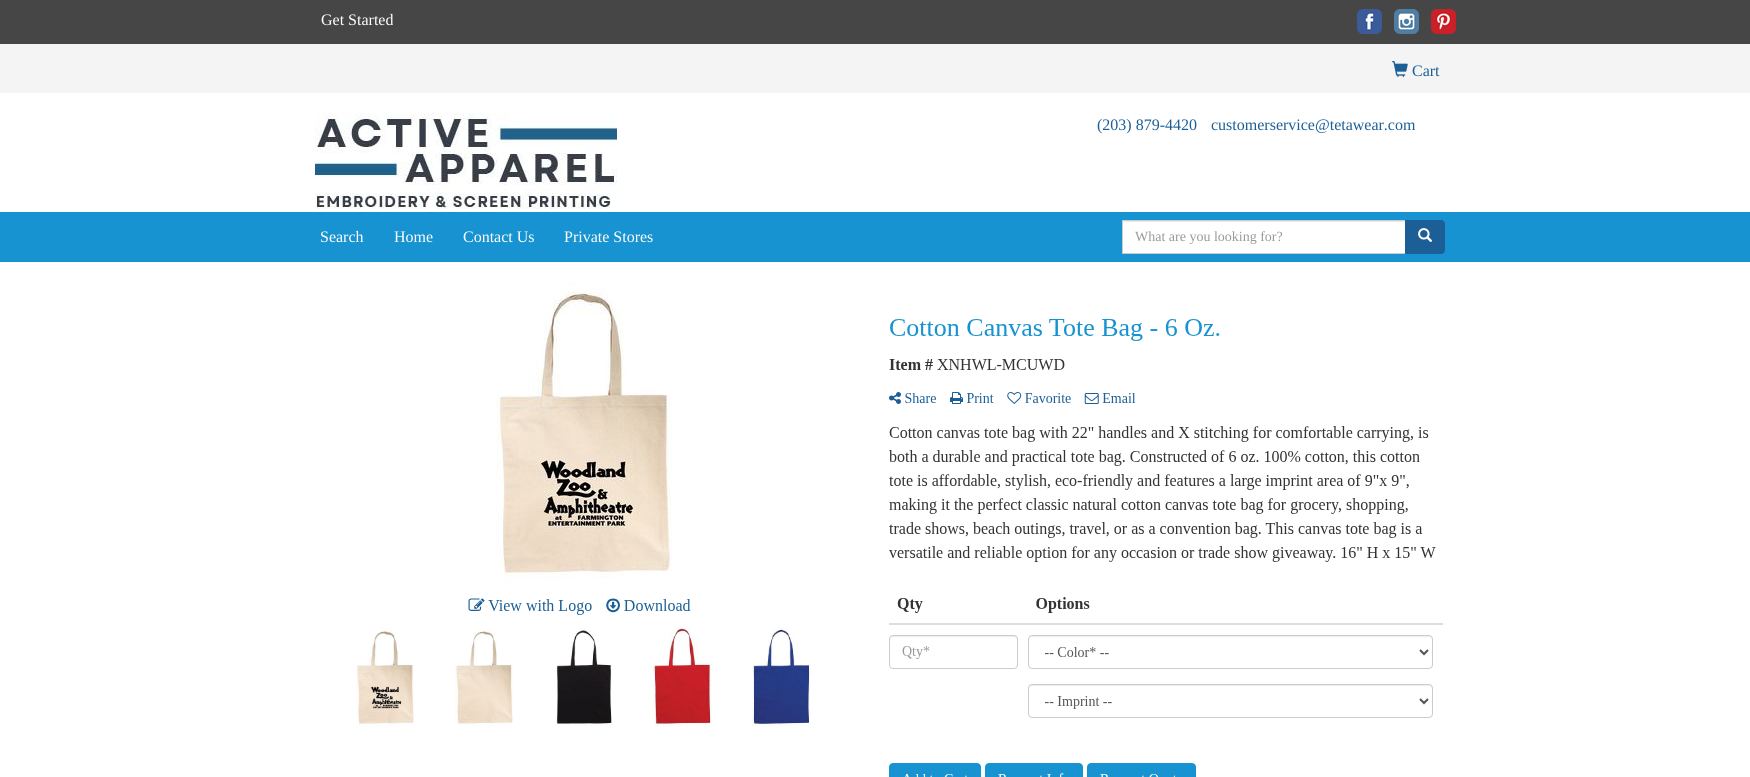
#include <cairo.h>
#include <math.h>
#include <stddef.h>


static void picture(cairo_t *cr, const char *path, double x, double y, double w, double h) {
    cairo_surface_t *image = cairo_image_surface_create_from_png(path);
    cairo_save(cr);
    cairo_set_source_surface(cr, image, x, y);
    cairo_rectangle(cr, x, y, w, h);
    cairo_fill(cr);
    cairo_restore(cr);
    cairo_surface_destroy(image);
}

int main(void) {
    cairo_surface_t *surface = cairo_image_surface_create(CAIRO_FORMAT_RGB24, 1750, 777);
    cairo_t *cr = cairo_create(surface);
    cairo_font_options_t *options = cairo_font_options_create();
    cairo_font_options_set_hint_metrics(options, CAIRO_HINT_METRICS_OFF);
    cairo_font_options_set_hint_style(options, CAIRO_HINT_STYLE_NONE);
    cairo_set_font_options(cr, options);
    cairo_set_miter_limit(cr, 4);
    cairo_set_source_rgb(cr, 0.957, 0.957, 0.957);
    cairo_paint(cr);
    cairo_set_source_rgb(cr, 0.275, 0.275, 0.275);
    cairo_rectangle(cr, 0, 0, 1750, 44);
    cairo_fill(cr);
    cairo_select_font_face(cr, "Liberation Serif", CAIRO_FONT_SLANT_NORMAL, CAIRO_FONT_WEIGHT_NORMAL);
    cairo_set_font_size(cr, 16);
    cairo_set_source_rgb(cr, 1, 1, 1);
    cairo_move_to(cr, 321, 25);
    cairo_show_text(cr, "Get Started");
    picture(cr, "img1.png", 1357, 9, 25, 25);
    picture(cr, "img2.png", 1394, 9, 25, 25);
    picture(cr, "img3.png", 1431, 9, 25, 25);
    picture(cr, "img4.png", 1392, 61, 16, 16);
    cairo_set_source_rgb(cr, 0.11, 0.373, 0.588);
    cairo_move_to(cr, 1412, 76);
    cairo_show_text(cr, "Cart");
    cairo_set_source_rgb(cr, 1, 1, 1);
    cairo_rectangle(cr, 0, 93, 1750, 119);
    cairo_fill(cr);
    picture(cr, "img5.png", 315, 113, 302, 96);
    cairo_set_source_rgb(cr, 0.11, 0.373, 0.588);
    cairo_move_to(cr, 1097, 130);
    cairo_show_text(cr, "(203) 879-4420");
    cairo_move_to(cr, 1211, 130);
    cairo_show_text(cr, "customerservice@tetawear.com");
    cairo_set_source_rgb(cr, 0.094, 0.576, 0.82);
    cairo_rectangle(cr, 0, 212, 1750, 50);
    cairo_fill(cr);
    cairo_set_source_rgb(cr, 1, 1, 1);
    cairo_move_to(cr, 320, 242);
    cairo_show_text(cr, "Search");
    cairo_move_to(cr, 394, 242);
    cairo_show_text(cr, "Home");
    cairo_move_to(cr, 463, 242);
    cairo_show_text(cr, "Contact Us");
    cairo_move_to(cr, 564, 242);
    cairo_show_text(cr, "Private Stores");
    cairo_rectangle(cr, 1123, 222, 282, 31);
    cairo_fill(cr);
    cairo_set_source_rgb(cr, 0.925, 0.925, 0.925);
    cairo_rectangle(cr, 1123, 221, 282, 1);
    cairo_fill(cr);
    cairo_rectangle(cr, 1122.5, 220.5, 283, 33);
    cairo_set_source_rgb(cr, 0.8, 0.8, 0.8);
    cairo_set_line_width(cr, 1);
    cairo_stroke(cr);
    cairo_set_font_size(cr, 14);
    cairo_set_source_rgb(cr, 0.6, 0.6, 0.6);
    cairo_move_to(cr, 1135, 241);
    cairo_show_text(cr, "What are you looking for?");
    cairo_set_source_rgb(cr, 0.11, 0.373, 0.588);
    cairo_new_path(cr);
    cairo_move_to(cr, 1405.5, 220.5);
    cairo_line_to(cr, 1441, 220.5);
    cairo_curve_to(cr, 1443, 220.5, 1444.5, 222, 1444.5, 224);
    cairo_line_to(cr, 1444.5, 250);
    cairo_curve_to(cr, 1444.5, 252, 1443, 253.5, 1441, 253.5);
    cairo_line_to(cr, 1405.5, 253.5);
    cairo_close_path(cr);
    cairo_fill_preserve(cr);
    cairo_stroke(cr);
    picture(cr, "img6.png", 1418, 228, 15, 14);
    cairo_set_source_rgb(cr, 1, 1, 1);
    cairo_rectangle(cr, 0, 262, 1750, 515);
    cairo_fill(cr);
    picture(cr, "img7.png", 356, 283, 1087, 494);
    cairo_surface_write_to_png(surface, "page.png");
    cairo_font_options_destroy(options);
    cairo_destroy(cr);
    cairo_surface_destroy(surface);
    return 0;
}
